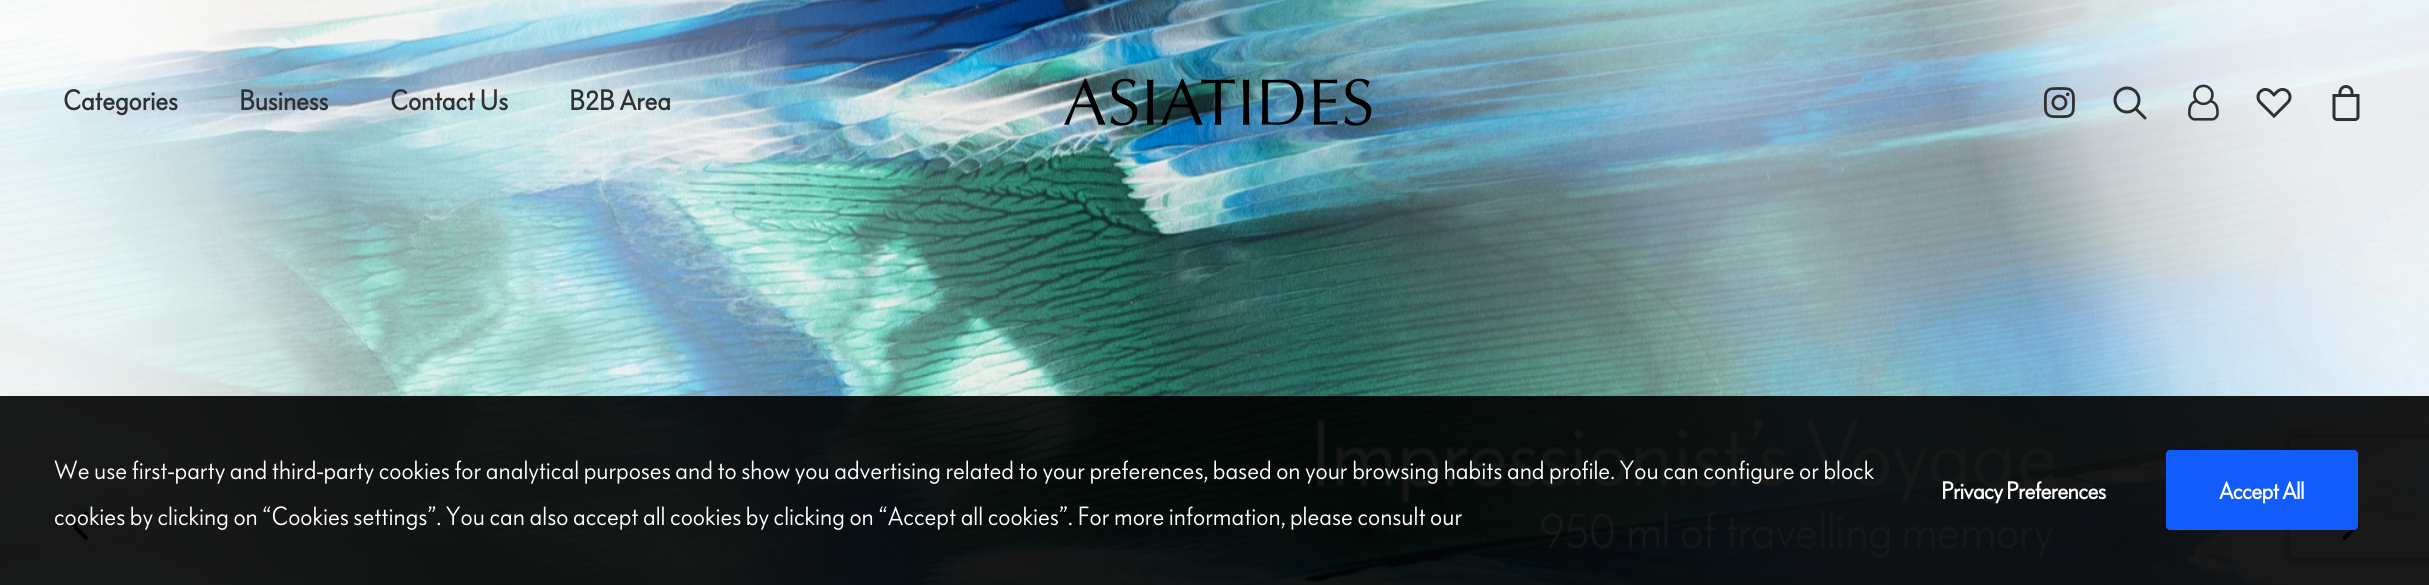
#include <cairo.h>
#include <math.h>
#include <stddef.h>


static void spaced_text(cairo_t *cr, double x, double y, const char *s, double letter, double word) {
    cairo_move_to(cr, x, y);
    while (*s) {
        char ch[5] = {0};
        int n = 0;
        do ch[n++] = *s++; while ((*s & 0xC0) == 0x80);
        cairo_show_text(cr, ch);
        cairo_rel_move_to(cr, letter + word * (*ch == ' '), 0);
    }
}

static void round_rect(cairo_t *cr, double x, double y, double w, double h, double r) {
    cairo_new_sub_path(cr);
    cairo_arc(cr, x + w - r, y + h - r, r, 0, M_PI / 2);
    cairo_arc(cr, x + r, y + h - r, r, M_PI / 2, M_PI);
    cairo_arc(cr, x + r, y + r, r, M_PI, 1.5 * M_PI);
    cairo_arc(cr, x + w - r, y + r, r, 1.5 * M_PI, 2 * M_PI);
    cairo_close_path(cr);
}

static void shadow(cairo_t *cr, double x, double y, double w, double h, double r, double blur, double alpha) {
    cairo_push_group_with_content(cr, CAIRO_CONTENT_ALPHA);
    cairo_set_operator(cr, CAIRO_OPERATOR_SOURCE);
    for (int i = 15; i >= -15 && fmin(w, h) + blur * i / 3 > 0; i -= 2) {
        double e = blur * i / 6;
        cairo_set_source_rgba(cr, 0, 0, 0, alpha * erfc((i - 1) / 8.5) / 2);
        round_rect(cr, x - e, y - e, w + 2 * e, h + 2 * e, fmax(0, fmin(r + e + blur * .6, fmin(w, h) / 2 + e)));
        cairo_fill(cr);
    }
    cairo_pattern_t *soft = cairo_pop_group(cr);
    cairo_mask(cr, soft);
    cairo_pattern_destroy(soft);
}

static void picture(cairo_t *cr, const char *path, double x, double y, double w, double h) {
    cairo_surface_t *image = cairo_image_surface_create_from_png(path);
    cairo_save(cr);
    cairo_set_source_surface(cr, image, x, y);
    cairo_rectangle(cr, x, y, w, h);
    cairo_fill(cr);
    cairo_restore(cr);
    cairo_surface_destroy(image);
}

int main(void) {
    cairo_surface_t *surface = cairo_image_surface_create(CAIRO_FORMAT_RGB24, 2429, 585);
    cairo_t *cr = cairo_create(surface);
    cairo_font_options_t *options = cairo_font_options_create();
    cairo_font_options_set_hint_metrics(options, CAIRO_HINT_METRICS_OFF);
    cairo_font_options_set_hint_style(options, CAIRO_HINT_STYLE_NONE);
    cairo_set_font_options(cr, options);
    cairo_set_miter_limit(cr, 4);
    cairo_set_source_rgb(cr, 1, 1, 1);
    cairo_paint(cr);
    picture(cr, "img1.png", 0, 0, 2429, 585);
    picture(cr, "img2.png", 71, 511, 18, 29);
    picture(cr, "img3.png", 2342, 524, 18, 16);
    cairo_select_font_face(cr, "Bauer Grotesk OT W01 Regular", CAIRO_FONT_SLANT_NORMAL, CAIRO_FONT_WEIGHT_BOLD);
    cairo_set_font_size(cr, 28);
    cairo_set_source_rgb(cr, 0.188, 0.192, 0.2);
    cairo_move_to(cr, 63, 110);
    cairo_show_text(cr, "Categories");
    cairo_move_to(cr, 239, 110);
    cairo_show_text(cr, "Business");
    cairo_move_to(cr, 390, 110);
    cairo_show_text(cr, "Contact Us");
    cairo_move_to(cr, 569, 110);
    cairo_show_text(cr, "B2B Area");
    picture(cr, "img4.png", 1064, 78, 308, 48);
    picture(cr, "img5.png", 2044, 87, 31, 31);
    picture(cr, "img6.png", 2113, 86, 34, 34);
    picture(cr, "img7.png", 2188, 84, 31, 37);
    picture(cr, "img8.png", 2256, 88, 36, 31);
    picture(cr, "img9.png", 2332, 85, 28, 36);
    cairo_save(cr);
    cairo_set_fill_rule(cr, CAIRO_FILL_RULE_EVEN_ODD);
    cairo_new_path(cr);
    cairo_move_to(cr, 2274, 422);
    cairo_line_to(cr, 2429, 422);
    cairo_line_to(cr, 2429, 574);
    cairo_line_to(cr, 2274, 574);
    cairo_close_path(cr);
    cairo_move_to(cr, 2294, 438);
    cairo_line_to(cr, 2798, 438);
    cairo_curve_to(cr, 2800, 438, 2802, 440, 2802, 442);
    cairo_line_to(cr, 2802, 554);
    cairo_curve_to(cr, 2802, 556, 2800, 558, 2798, 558);
    cairo_line_to(cr, 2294, 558);
    cairo_curve_to(cr, 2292, 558, 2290, 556, 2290, 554);
    cairo_line_to(cr, 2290, 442);
    cairo_curve_to(cr, 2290, 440, 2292, 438, 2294, 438);
    cairo_close_path(cr);
    cairo_clip(cr);
    cairo_set_source_rgb(cr, 0.502, 0.502, 0.502);
    shadow(cr, 2290, 438, 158, 120, 4, 5, 1);
    cairo_restore(cr);
    cairo_set_source_rgba(cr, 0, 0, 0, 0.9);
    cairo_rectangle(cr, 0, 396, 2429, 189);
    cairo_fill(cr);
    cairo_select_font_face(cr, "Bauer Grotesk OT W01 Regular", CAIRO_FONT_SLANT_NORMAL, CAIRO_FONT_WEIGHT_NORMAL);
    cairo_set_font_size(cr, 26);
    cairo_set_source_rgb(cr, 1, 1, 1);
    cairo_move_to(cr, 54, 479);
    cairo_show_text(cr, "We use first-party and third-party cookies for analytical purposes and to show you advertising related to your preferences, based on your browsing habits and profile. You can configure or block");
    cairo_move_to(cr, 54, 525);
    cairo_show_text(cr, "cookies by clicking on “Cookies settings”. You can also accept all cookies by clicking on “Accept all cookies”. For more information, please consult our");
    cairo_select_font_face(cr, "Bauer Grotesk OT W01 Regular", CAIRO_FONT_SLANT_NORMAL, CAIRO_FONT_WEIGHT_BOLD);
    cairo_set_font_size(cr, 24);
    spaced_text(cr, 1941, 499, "Privacy Preferences", -0.6, 0);
    cairo_set_source_rgb(cr, 0.067, 0.361, 0.98);
    round_rect(cr, 2166, 450, 192, 80, 4);
    cairo_fill(cr);
    cairo_set_source_rgb(cr, 1, 1, 1);
    spaced_text(cr, 2219, 499, "Accept All", -0.6, 0);
    cairo_surface_write_to_png(surface, "page.png");
    cairo_font_options_destroy(options);
    cairo_destroy(cr);
    cairo_surface_destroy(surface);
    return 0;
}
